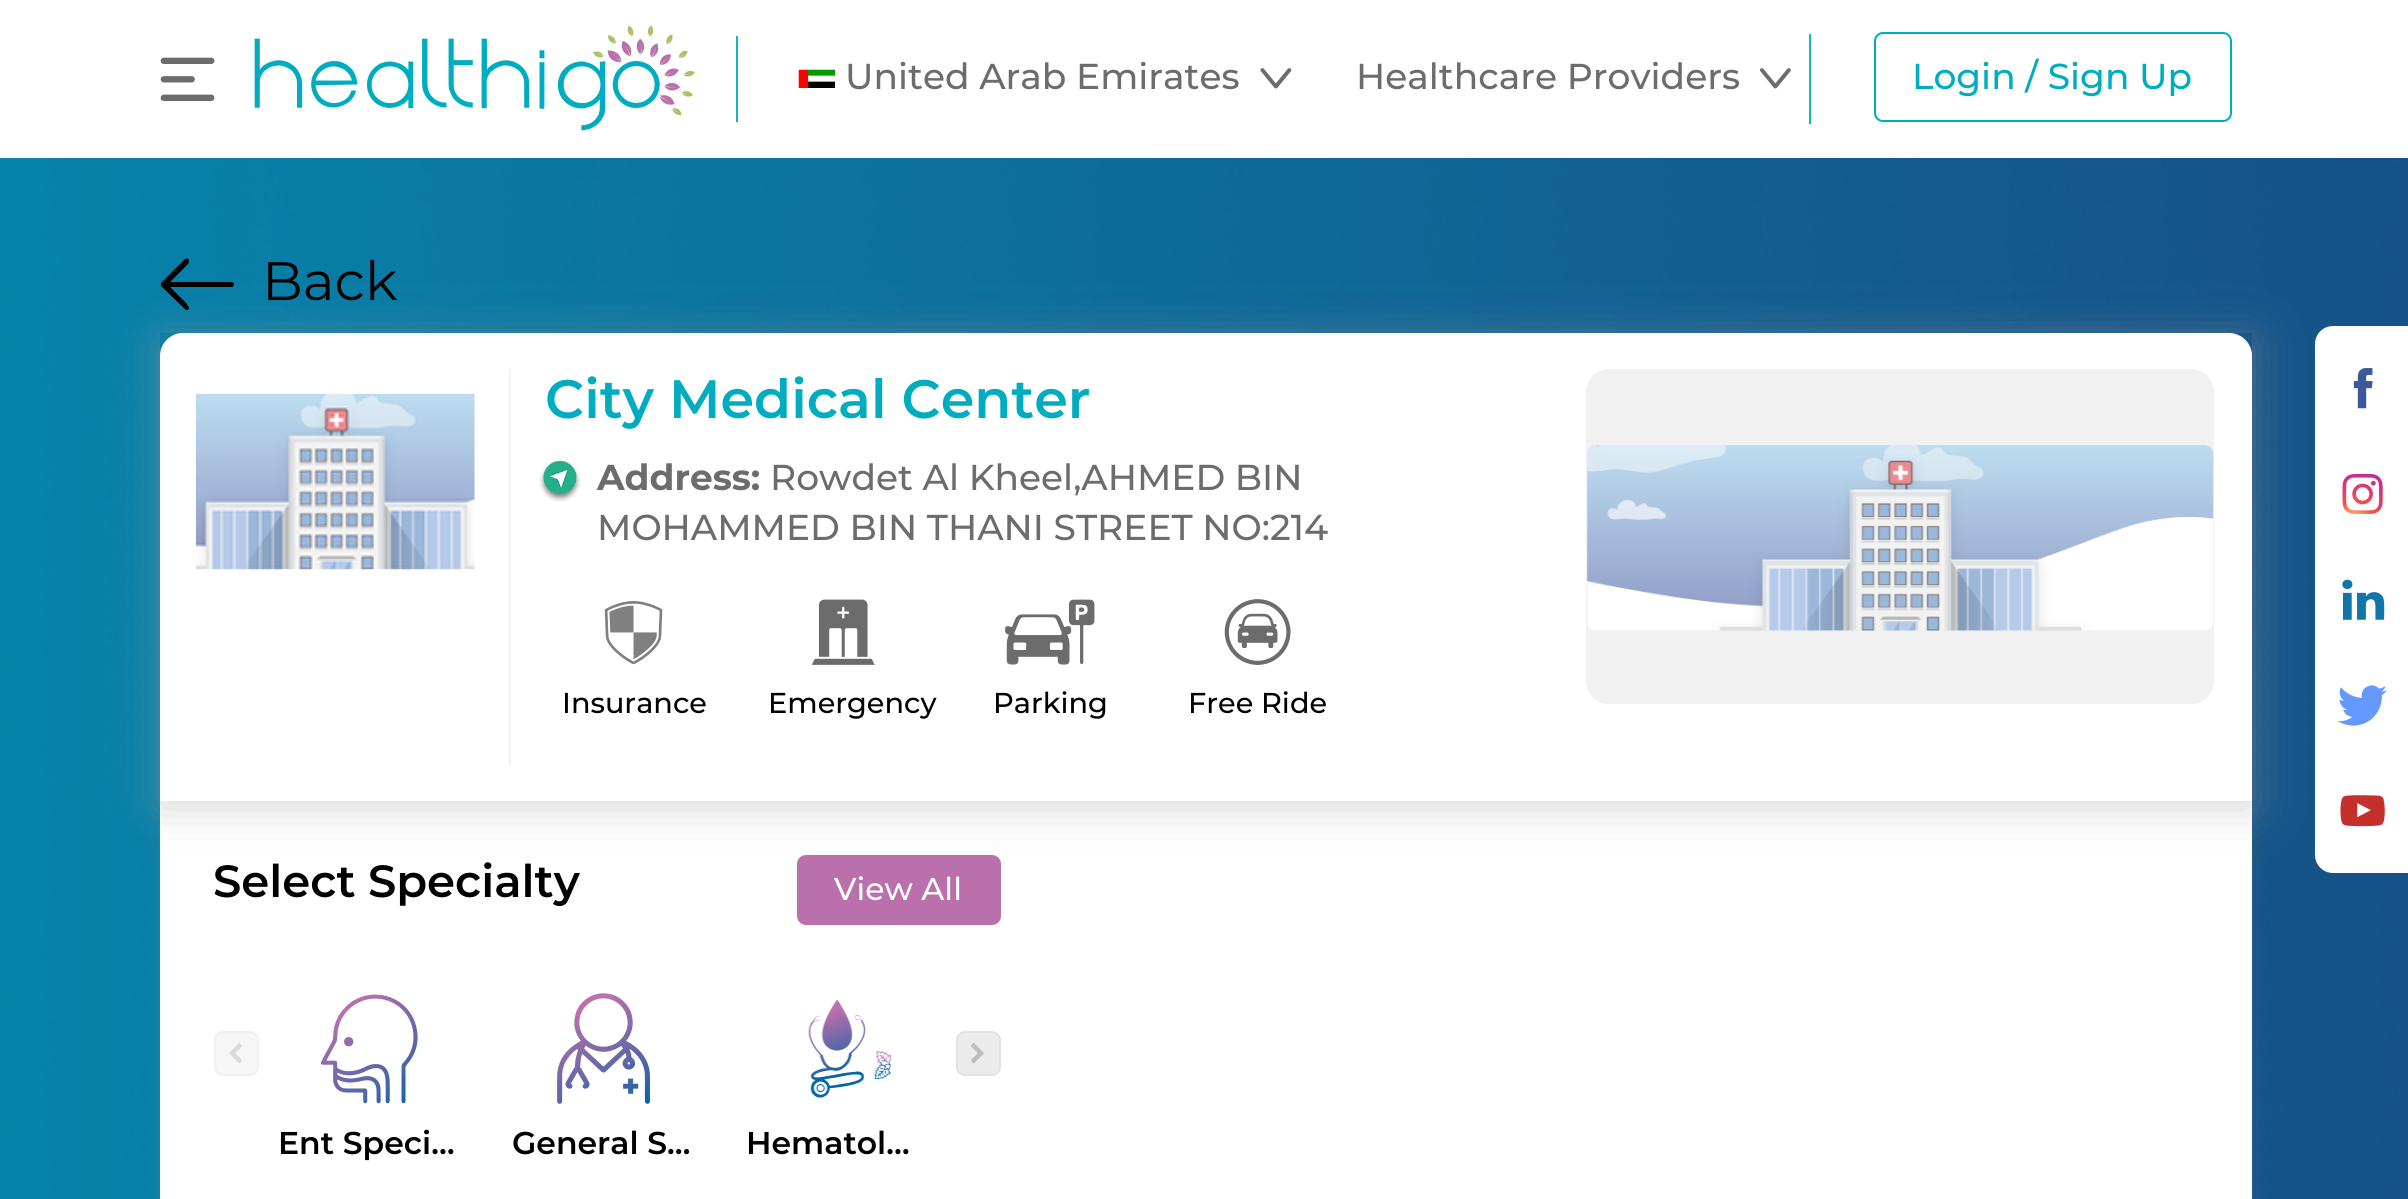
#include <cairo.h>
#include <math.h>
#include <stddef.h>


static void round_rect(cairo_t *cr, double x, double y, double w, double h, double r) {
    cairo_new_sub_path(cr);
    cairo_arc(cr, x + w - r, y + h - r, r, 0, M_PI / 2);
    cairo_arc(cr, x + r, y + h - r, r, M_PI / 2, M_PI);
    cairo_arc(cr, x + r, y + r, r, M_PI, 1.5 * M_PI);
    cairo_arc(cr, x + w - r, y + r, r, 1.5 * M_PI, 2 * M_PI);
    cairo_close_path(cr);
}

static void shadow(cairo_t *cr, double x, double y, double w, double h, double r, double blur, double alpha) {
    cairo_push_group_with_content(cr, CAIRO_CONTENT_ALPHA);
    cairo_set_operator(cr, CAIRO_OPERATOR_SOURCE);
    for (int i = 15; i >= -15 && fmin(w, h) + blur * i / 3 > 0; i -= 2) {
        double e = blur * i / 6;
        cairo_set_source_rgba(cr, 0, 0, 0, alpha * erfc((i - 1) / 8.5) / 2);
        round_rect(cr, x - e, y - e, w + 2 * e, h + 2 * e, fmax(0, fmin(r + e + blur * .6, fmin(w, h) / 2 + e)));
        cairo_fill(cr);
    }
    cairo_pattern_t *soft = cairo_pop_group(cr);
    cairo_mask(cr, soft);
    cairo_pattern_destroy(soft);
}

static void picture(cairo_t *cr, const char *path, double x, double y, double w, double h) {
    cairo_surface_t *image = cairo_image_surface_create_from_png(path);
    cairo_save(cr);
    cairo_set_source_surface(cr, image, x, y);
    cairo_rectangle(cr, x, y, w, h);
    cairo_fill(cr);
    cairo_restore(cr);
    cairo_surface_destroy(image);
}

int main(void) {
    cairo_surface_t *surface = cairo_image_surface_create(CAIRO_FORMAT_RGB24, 2408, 1199);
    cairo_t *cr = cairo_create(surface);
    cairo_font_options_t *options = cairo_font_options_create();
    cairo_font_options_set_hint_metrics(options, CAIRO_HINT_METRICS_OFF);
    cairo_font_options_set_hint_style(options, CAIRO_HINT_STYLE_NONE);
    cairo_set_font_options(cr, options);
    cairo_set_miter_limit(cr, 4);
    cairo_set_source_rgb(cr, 1, 1, 1);
    cairo_paint(cr);
    picture(cr, "img1.png", 160, 57, 55, 44);
    picture(cr, "img2.png", 254, 25, 441, 106);
    cairo_set_source_rgb(cr, 0.098, 0.698, 0.753);
    cairo_rectangle(cr, 736, 36, 2, 86);
    cairo_fill(cr);
    picture(cr, "img3.png", 798, 69, 37, 19);
    cairo_select_font_face(cr, "Montserrat Medium", CAIRO_FONT_SLANT_NORMAL, CAIRO_FONT_WEIGHT_NORMAL);
    cairo_set_font_size(cr, 36);
    cairo_set_source_rgb(cr, 0.424, 0.424, 0.424);
    cairo_move_to(cr, 845, 89);
    cairo_show_text(cr, "United Arab Emirates");
    picture(cr, "img4.png", 1260, 68, 32, 21);
    cairo_move_to(cr, 1356, 89);
    cairo_show_text(cr, "Healthcare Providers");
    picture(cr, "img5.png", 1759, 68, 32, 21);
    cairo_set_source_rgb(cr, 0.098, 0.698, 0.753);
    cairo_rectangle(cr, 1809, 34, 2, 90);
    cairo_fill(cr);
    round_rect(cr, 1875, 33, 356, 88, 8);
    cairo_set_source_rgb(cr, 0, 0.678, 0.753);
    cairo_stroke(cr);
    cairo_move_to(cr, 1912, 89);
    cairo_show_text(cr, "Login / Sign Up");
    picture(cr, "img6.png", 0, 158, 2408, 1041);
    cairo_set_source_rgb(cr, 0, 0, 0);
    cairo_new_path(cr);
    cairo_move_to(cr, 170, 287);
    cairo_line_to(cr, 232, 287);
    cairo_curve_to(cr, 235, 286, 234, 282, 232, 282);
    cairo_line_to(cr, 170, 282);
    cairo_line_to(cr, 188, 264);
    cairo_curve_to(cr, 190, 261, 189, 257, 185, 259);
    cairo_line_to(cr, 161, 283);
    cairo_line_to(cr, 161, 284);
    cairo_line_to(cr, 161, 286);
    cairo_line_to(cr, 186, 310);
    cairo_line_to(cr, 188, 310);
    cairo_curve_to(cr, 191, 308, 187, 305, 186, 303);
    cairo_close_path(cr);
    cairo_fill(cr);
    cairo_select_font_face(cr, "Montserrat", CAIRO_FONT_SLANT_NORMAL, CAIRO_FONT_WEIGHT_NORMAL);
    cairo_set_font_size(cr, 54);
    cairo_move_to(cr, 262, 300);
    cairo_show_text(cr, "Back");
    cairo_set_source_rgb(cr, 0.451, 0.451, 0.451);
    shadow(cr, 171, 344, 2070, 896, 11, 10, 1);
    cairo_set_source_rgb(cr, 1, 1, 1);
    round_rect(cr, 160, 333, 2092, 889, 23);
    cairo_fill(cr);
    cairo_save(cr);
    cairo_set_fill_rule(cr, CAIRO_FILL_RULE_EVEN_ODD);
    cairo_new_path(cr);
    cairo_move_to(cr, 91, 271);
    cairo_line_to(cr, 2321, 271);
    cairo_line_to(cr, 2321, 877);
    cairo_line_to(cr, 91, 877);
    cairo_close_path(cr);
    cairo_move_to(cr, 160, 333);
    cairo_line_to(cr, 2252, 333);
    cairo_line_to(cr, 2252, 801);
    cairo_line_to(cr, 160, 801);
    cairo_close_path(cr);
    cairo_clip(cr);
    cairo_set_source_rgb(cr, 0.627, 0.612, 0.612);
    shadow(cr, 160, 340, 2092, 468, 0, 22.5, 0.4);
    cairo_restore(cr);
    picture(cr, "img7.png", 195, 393, 280, 177);
    cairo_set_source_rgb(cr, 0.949, 0.949, 0.949);
    cairo_rectangle(cr, 509, 369, 2, 396);
    cairo_fill(cr);
    cairo_select_font_face(cr, "Montserrat SemiBold", CAIRO_FONT_SLANT_NORMAL, CAIRO_FONT_WEIGHT_NORMAL);
    cairo_set_source_rgb(cr, 0, 0.678, 0.753);
    cairo_move_to(cr, 545, 418);
    cairo_show_text(cr, "City Medical Center");
    picture(cr, "img8.png", 539, 461, 42, 41);
    cairo_select_font_face(cr, "Montserrat", CAIRO_FONT_SLANT_NORMAL, CAIRO_FONT_WEIGHT_BOLD);
    cairo_set_font_size(cr, 36);
    cairo_set_source_rgb(cr, 0.424, 0.424, 0.424);
    cairo_move_to(cr, 597, 490);
    cairo_show_text(cr, "Address:");
    cairo_select_font_face(cr, "Montserrat Medium", CAIRO_FONT_SLANT_NORMAL, CAIRO_FONT_WEIGHT_NORMAL);
    cairo_move_to(cr, 770, 490);
    cairo_show_text(cr, "Rowdet Al Kheel,AHMED BIN");
    cairo_move_to(cr, 597, 540);
    cairo_show_text(cr, "MOHAMMED BIN THANI STREET NO:214");
    picture(cr, "img9.png", 604, 601, 59, 64);
    cairo_set_font_size(cr, 28.75);
    cairo_set_source_rgb(cr, 0, 0, 0);
    cairo_move_to(cr, 562, 713);
    cairo_show_text(cr, "Insurance");
    picture(cr, "img10.png", 811, 599, 64, 66);
    cairo_move_to(cr, 768, 713);
    cairo_show_text(cr, "Emergency");
    picture(cr, "img11.png", 1005, 599, 90, 66);
    cairo_move_to(cr, 993, 713);
    cairo_show_text(cr, "Parking");
    picture(cr, "img12.png", 1224, 599, 67, 66);
    cairo_move_to(cr, 1188, 713);
    cairo_show_text(cr, "Free Ride");
    cairo_set_source_rgb(cr, 0.945, 0.945, 0.945);
    round_rect(cr, 1586, 369, 628, 335, 23);
    cairo_fill(cr);
    picture(cr, "img13.png", 1587, 445, 627, 186);
    cairo_select_font_face(cr, "Montserrat SemiBold", CAIRO_FONT_SLANT_NORMAL, CAIRO_FONT_WEIGHT_NORMAL);
    cairo_set_font_size(cr, 45);
    cairo_set_source_rgb(cr, 0, 0, 0);
    cairo_move_to(cr, 213, 897);
    cairo_show_text(cr, "Select Specialty");
    cairo_set_source_rgb(cr, 0.729, 0.443, 0.671);
    round_rect(cr, 798, 856, 202, 68, 8);
    cairo_fill_preserve(cr);
    cairo_stroke(cr);
    cairo_select_font_face(cr, "Montserrat Medium", CAIRO_FONT_SLANT_NORMAL, CAIRO_FONT_WEIGHT_NORMAL);
    cairo_set_font_size(cr, 31.5);
    cairo_set_source_rgb(cr, 1, 1, 1);
    cairo_move_to(cr, 834, 900);
    cairo_show_text(cr, "View All");
    cairo_set_source_rgb(cr, 0.961, 0.961, 0.961);
    round_rect(cr, 215, 1032, 43, 43, 8);
    cairo_fill_preserve(cr);
    cairo_set_source_rgb(cr, 0.945, 0.945, 0.945);
    cairo_stroke(cr);
    picture(cr, "img14.png", 229, 1043, 13, 21);
    cairo_set_source_rgb(cr, 0.918, 0.918, 0.918);
    round_rect(cr, 957, 1032, 43, 43, 8);
    cairo_fill_preserve(cr);
    cairo_set_source_rgb(cr, 0.886, 0.886, 0.886);
    cairo_stroke(cr);
    picture(cr, "img15.png", 971, 1043, 13, 21);
    picture(cr, "img16.png", 320, 994, 98, 110);
    cairo_select_font_face(cr, "Montserrat SemiBold", CAIRO_FONT_SLANT_NORMAL, CAIRO_FONT_WEIGHT_NORMAL);
    cairo_set_source_rgb(cr, 0, 0, 0);
    cairo_move_to(cr, 278, 1154);
    cairo_show_text(cr, "Ent Speci…");
    picture(cr, "img17.png", 557, 993, 93, 111);
    cairo_move_to(cr, 512, 1154);
    cairo_show_text(cr, "General S…");
    picture(cr, "img18.png", 808, 999, 83, 99);
    cairo_move_to(cr, 746, 1154);
    cairo_show_text(cr, "Hematol…");
    cairo_set_source_rgb(cr, 1, 1, 1);
    round_rect(cr, 2315, 326, 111, 547, 18);
    cairo_fill(cr);
    picture(cr, "img19.png", 2353, 368, 20, 41);
    picture(cr, "img20.png", 2342, 473, 41, 41);
    picture(cr, "img21.png", 2342, 579, 43, 41);
    picture(cr, "img22.png", 2337, 685, 50, 41);
    picture(cr, "img23.png", 2340, 795, 45, 32);
    cairo_surface_write_to_png(surface, "page.png");
    cairo_font_options_destroy(options);
    cairo_destroy(cr);
    cairo_surface_destroy(surface);
    return 0;
}
